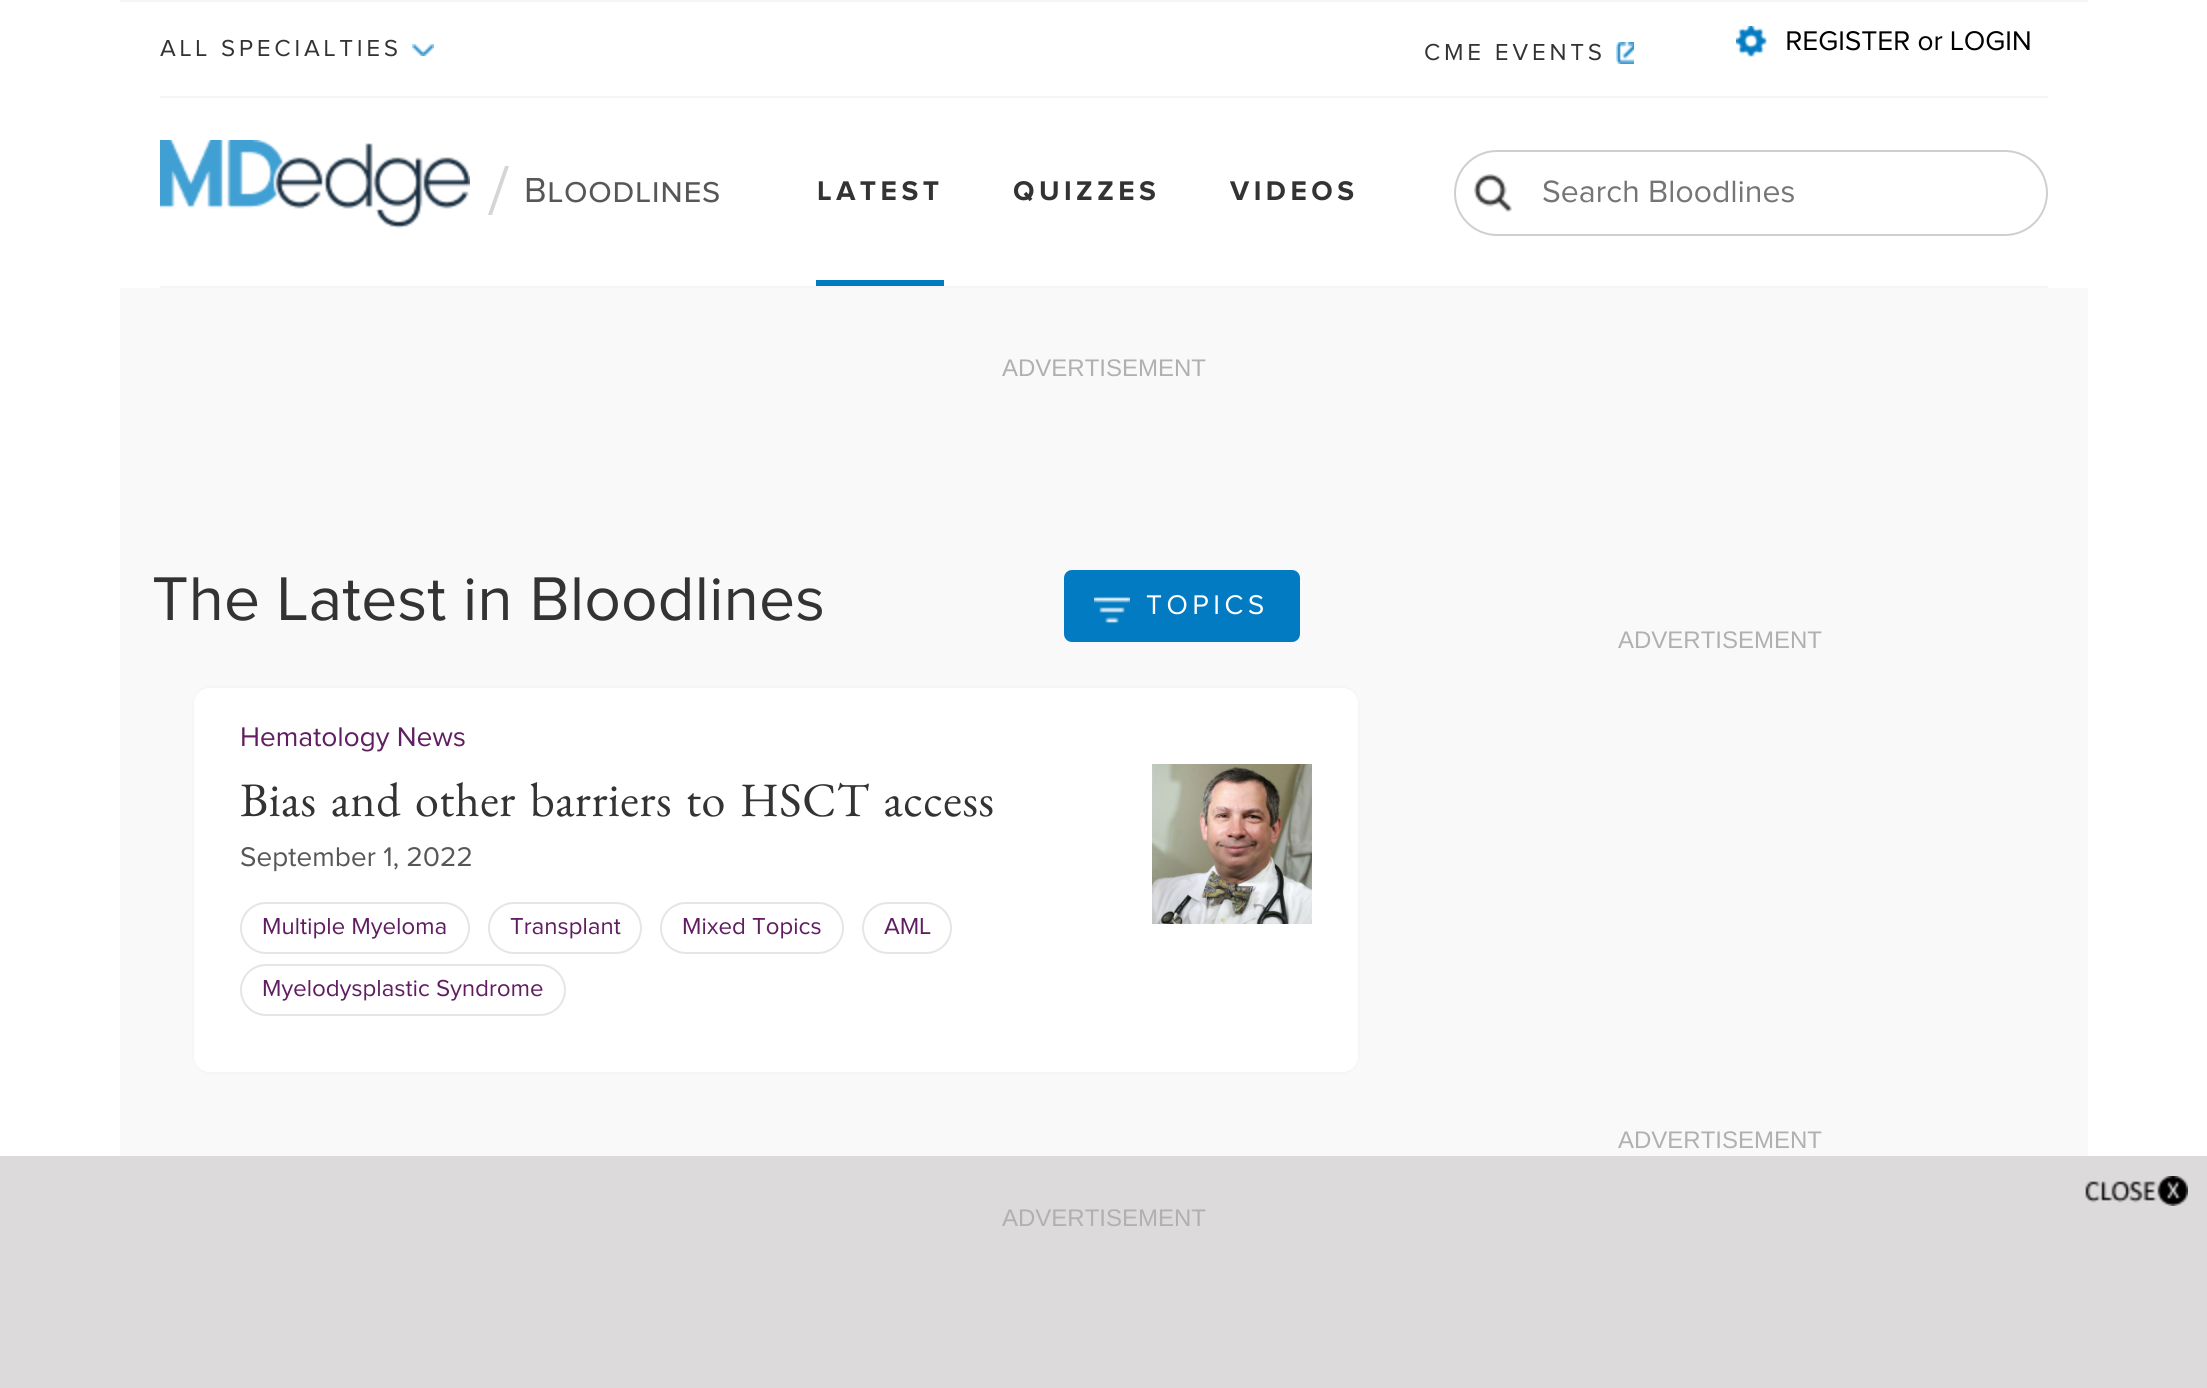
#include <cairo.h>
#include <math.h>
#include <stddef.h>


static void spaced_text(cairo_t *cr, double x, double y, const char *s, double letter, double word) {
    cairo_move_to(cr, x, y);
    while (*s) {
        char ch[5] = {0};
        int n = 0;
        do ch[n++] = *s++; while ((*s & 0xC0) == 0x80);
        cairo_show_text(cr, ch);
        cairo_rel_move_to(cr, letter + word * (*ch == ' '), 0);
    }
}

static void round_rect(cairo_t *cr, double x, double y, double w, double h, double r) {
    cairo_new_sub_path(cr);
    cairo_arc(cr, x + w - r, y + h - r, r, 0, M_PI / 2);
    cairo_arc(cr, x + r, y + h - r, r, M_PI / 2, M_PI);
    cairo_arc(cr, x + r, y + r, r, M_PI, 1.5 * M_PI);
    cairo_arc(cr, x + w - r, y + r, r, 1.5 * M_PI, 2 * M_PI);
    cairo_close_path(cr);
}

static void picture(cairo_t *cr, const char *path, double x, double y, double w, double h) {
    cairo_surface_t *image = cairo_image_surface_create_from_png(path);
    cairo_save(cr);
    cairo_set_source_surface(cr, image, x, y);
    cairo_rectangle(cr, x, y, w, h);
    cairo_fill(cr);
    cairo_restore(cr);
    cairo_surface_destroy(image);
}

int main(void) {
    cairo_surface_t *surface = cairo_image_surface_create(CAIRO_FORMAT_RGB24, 2207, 1388);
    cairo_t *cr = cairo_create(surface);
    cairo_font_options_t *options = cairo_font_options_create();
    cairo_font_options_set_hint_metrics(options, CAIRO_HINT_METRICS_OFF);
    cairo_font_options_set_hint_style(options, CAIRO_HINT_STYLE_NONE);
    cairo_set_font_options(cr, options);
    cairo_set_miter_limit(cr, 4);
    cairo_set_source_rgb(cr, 1, 1, 1);
    cairo_paint(cr);
    cairo_set_source_rgb(cr, 0.961, 0.961, 0.961);
    cairo_rectangle(cr, 120, 0, 1968, 2);
    cairo_fill(cr);
    picture(cr, "img1.png", 160, 39, 237, 18);
    picture(cr, "img2.png", 412, 44, 22, 12);
    picture(cr, "img3.png", 1425, 43, 176, 18);
    picture(cr, "img4.png", 1616, 42, 18, 22);
    picture(cr, "img5.png", 1736, 26, 31, 31);
    picture(cr, "img6.png", 1787, 31, 243, 20);
    cairo_rectangle(cr, 160, 96, 1888, 2);
    cairo_fill(cr);
    cairo_rectangle(cr, 160, 286, 1888, 2);
    cairo_fill(cr);
    picture(cr, "img7.png", 160, 140, 310, 88);
    cairo_set_source_rgb(cr, 0.835, 0.835, 0.835);
    cairo_new_path(cr);
    cairo_move_to(cr, 492, 215);
    cairo_line_to(cr, 488, 215);
    cairo_line_to(cr, 505, 166);
    cairo_line_to(cr, 509, 166);
    cairo_close_path(cr);
    cairo_fill(cr);
    picture(cr, "img8.png", 526, 178, 193, 25);
    cairo_set_source_rgb(cr, 0.012, 0.482, 0.761);
    cairo_rectangle(cr, 816, 280, 128, 6);
    cairo_fill(cr);
    cairo_select_font_face(cr, "Proxima Nova", CAIRO_FONT_SLANT_NORMAL, CAIRO_FONT_WEIGHT_BOLD);
    cairo_set_font_size(cr, 28);
    cairo_set_source_rgb(cr, 0.2, 0.2, 0.2);
    spaced_text(cr, 817, 200, "LATEST", 4.5, 0);
    spaced_text(cr, 1013, 200, "QUIZZES", 4.5, 0);
    spaced_text(cr, 1230, 200, "VIDEOS", 4.5, 0);
    round_rect(cr, 1455, 151, 592, 84, 42);
    cairo_set_source_rgb(cr, 0.812, 0.812, 0.812);
    cairo_stroke(cr);
    picture(cr, "img9.png", 1543, 180, 251, 23);
    picture(cr, "img10.png", 1474, 174, 38, 38);
    cairo_set_source_rgb(cr, 0.976, 0.976, 0.976);
    cairo_rectangle(cr, 120, 288, 1968, 868);
    cairo_fill(cr);
    cairo_select_font_face(cr, "Liberation Sans", CAIRO_FONT_SLANT_NORMAL, CAIRO_FONT_WEIGHT_NORMAL);
    cairo_set_font_size(cr, 24);
    cairo_set_source_rgb(cr, 0.69, 0.69, 0.69);
    cairo_move_to(cr, 1002, 376);
    cairo_show_text(cr, "ADVERTISEMENT");
    picture(cr, "img11.png", 154, 577, 668, 44);
    cairo_set_source_rgb(cr, 0.012, 0.482, 0.761);
    round_rect(cr, 1064, 570, 236, 72, 8);
    cairo_fill(cr);
    picture(cr, "img12.png", 1094, 596, 36, 28);
    picture(cr, "img13.png", 1146, 595, 117, 20);
    cairo_set_source_rgb(cr, 1, 1, 1);
    round_rect(cr, 193, 687, 1166, 386, 17);
    cairo_fill_preserve(cr);
    cairo_set_source_rgb(cr, 0.961, 0.961, 0.961);
    cairo_stroke(cr);
    picture(cr, "img14.png", 242, 727, 223, 25);
    cairo_select_font_face(cr, "EB Garamond", CAIRO_FONT_SLANT_NORMAL, CAIRO_FONT_WEIGHT_NORMAL);
    cairo_set_font_size(cr, 48);
    cairo_set_source_rgb(cr, 0.2, 0.2, 0.2);
    spaced_text(cr, 240, 816, "Bias and other barriers to HSCT access", 0.5, 4);
    picture(cr, "img15.png", 241, 847, 230, 25);
    round_rect(cr, 241, 903, 228, 50, 25);
    cairo_set_source_rgb(cr, 0.898, 0.898, 0.898);
    cairo_stroke(cr);
    picture(cr, "img16.png", 263, 918, 183, 21);
    round_rect(cr, 489, 903, 152, 50, 25);
    cairo_stroke(cr);
    picture(cr, "img17.png", 510, 918, 111, 21);
    round_rect(cr, 661, 903, 182, 50, 25);
    cairo_stroke(cr);
    picture(cr, "img18.png", 683, 918, 138, 21);
    round_rect(cr, 863, 903, 88, 50, 25);
    cairo_stroke(cr);
    picture(cr, "img19.png", 884, 918, 47, 16);
    round_rect(cr, 241, 965, 324, 50, 25);
    cairo_stroke(cr);
    picture(cr, "img20.png", 263, 979, 280, 22);
    picture(cr, "img21.png", 1152, 764, 160, 160);
    cairo_select_font_face(cr, "Liberation Sans", CAIRO_FONT_SLANT_NORMAL, CAIRO_FONT_WEIGHT_NORMAL);
    cairo_set_font_size(cr, 24);
    cairo_set_source_rgb(cr, 0.69, 0.69, 0.69);
    cairo_move_to(cr, 1618, 648);
    cairo_show_text(cr, "ADVERTISEMENT");
    cairo_move_to(cr, 1618, 1148);
    cairo_show_text(cr, "ADVERTISEMENT");
    cairo_set_source_rgb(cr, 0.863, 0.855, 0.859);
    cairo_rectangle(cr, 0, 1156, 2207, 232);
    cairo_fill(cr);
    picture(cr, "img22.png", 2085, 1176, 103, 30);
    cairo_set_source_rgb(cr, 0.69, 0.69, 0.69);
    cairo_move_to(cr, 1002, 1226);
    cairo_show_text(cr, "ADVERTISEMENT");
    cairo_surface_write_to_png(surface, "page.png");
    cairo_font_options_destroy(options);
    cairo_destroy(cr);
    cairo_surface_destroy(surface);
    return 0;
}
